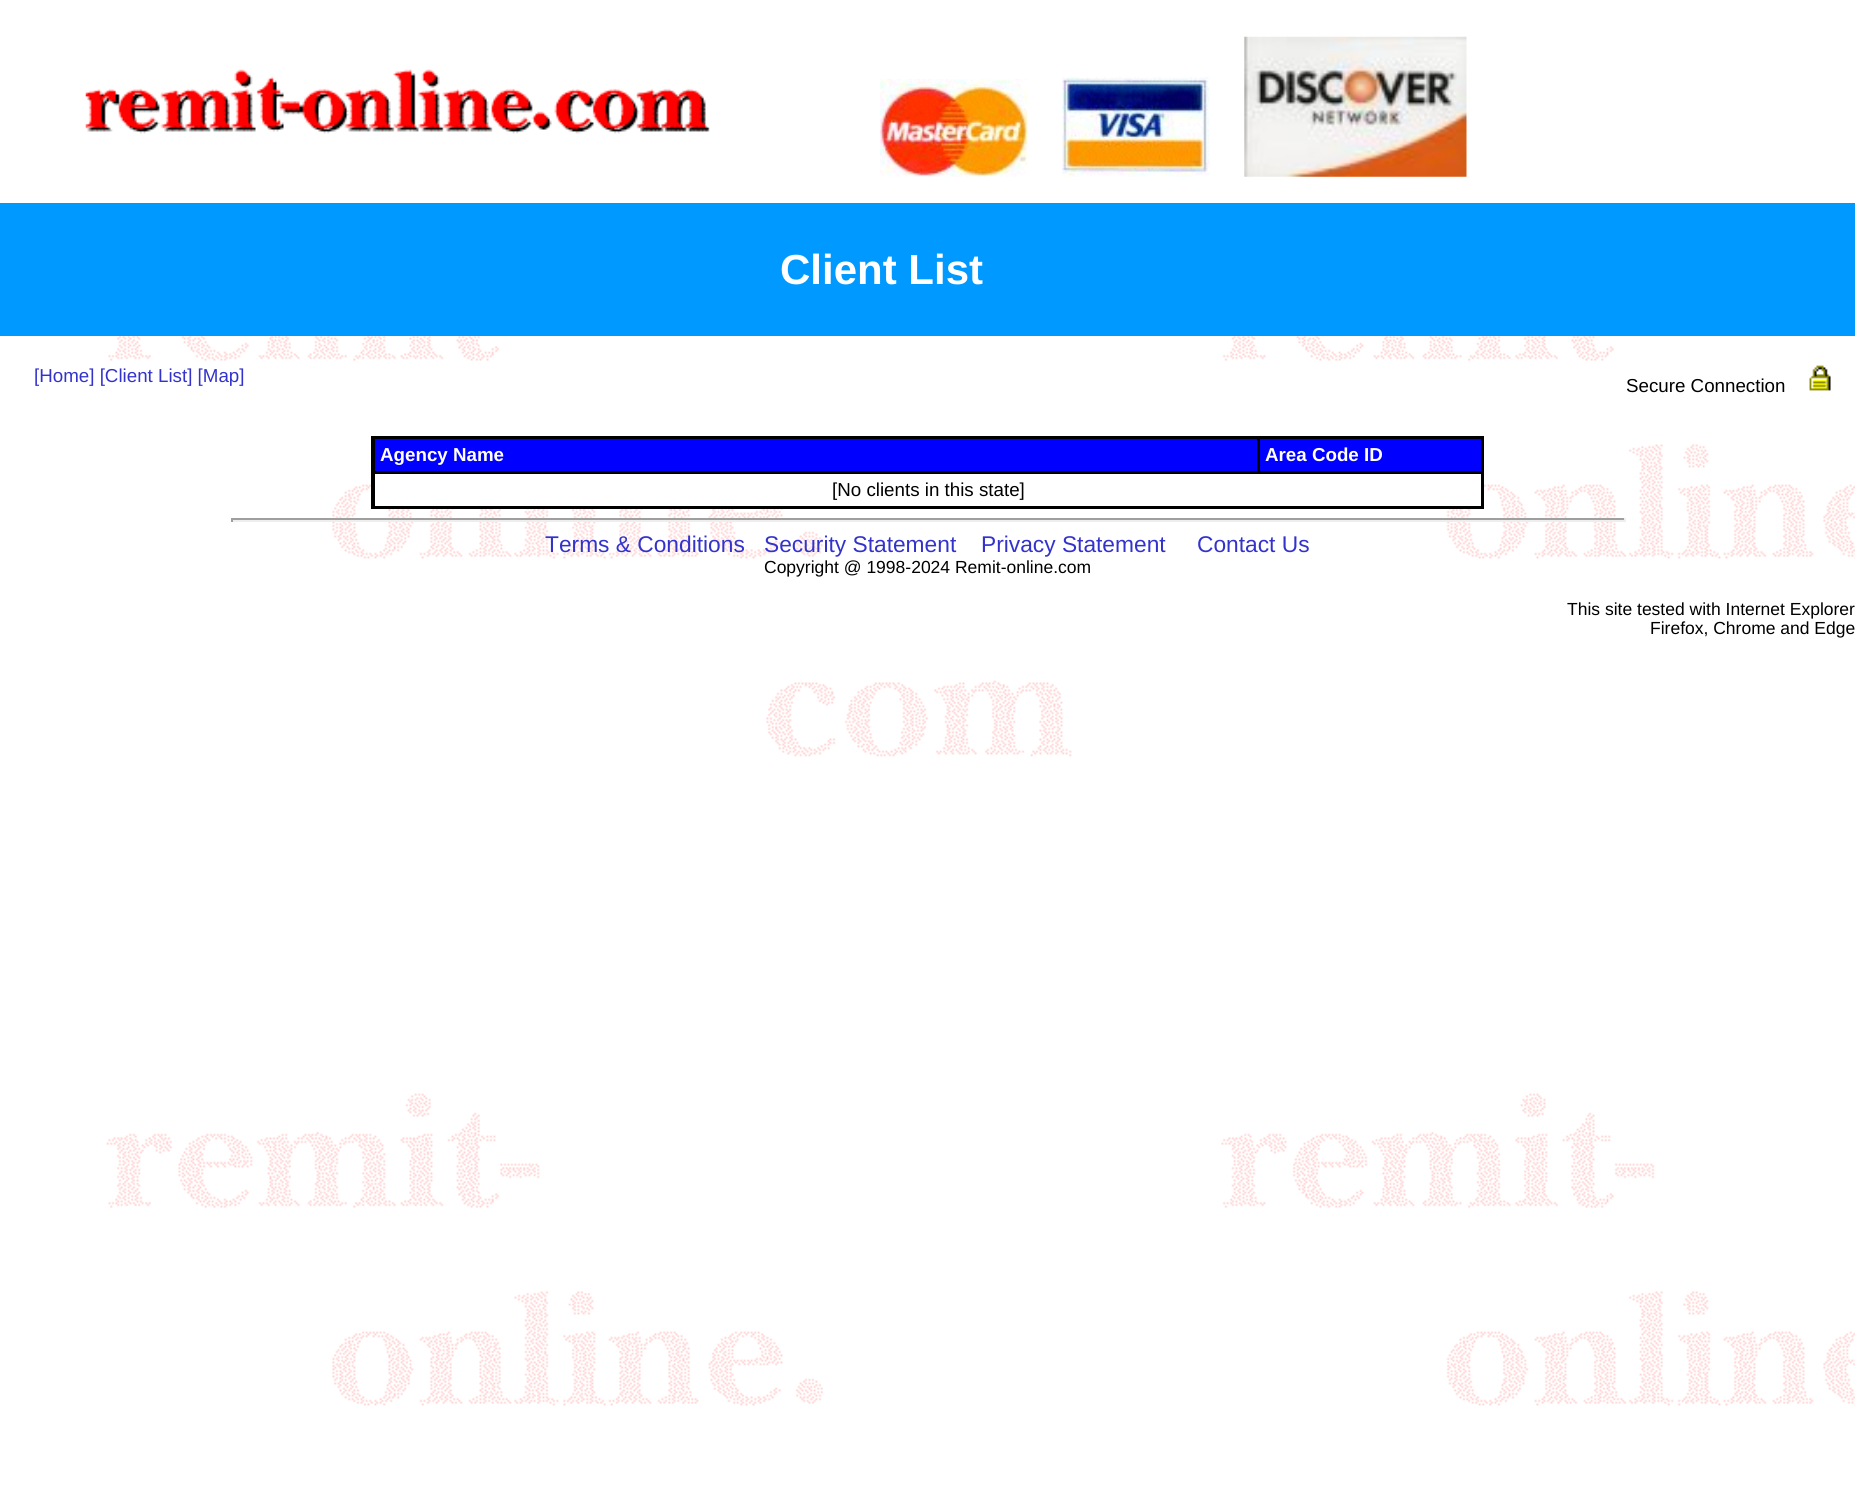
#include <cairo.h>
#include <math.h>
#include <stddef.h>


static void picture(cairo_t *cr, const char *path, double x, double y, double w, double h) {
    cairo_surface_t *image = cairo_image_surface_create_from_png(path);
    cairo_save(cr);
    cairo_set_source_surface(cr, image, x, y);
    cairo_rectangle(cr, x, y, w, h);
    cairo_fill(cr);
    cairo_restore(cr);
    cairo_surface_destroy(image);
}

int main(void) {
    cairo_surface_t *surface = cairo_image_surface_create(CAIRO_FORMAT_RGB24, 1855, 1506);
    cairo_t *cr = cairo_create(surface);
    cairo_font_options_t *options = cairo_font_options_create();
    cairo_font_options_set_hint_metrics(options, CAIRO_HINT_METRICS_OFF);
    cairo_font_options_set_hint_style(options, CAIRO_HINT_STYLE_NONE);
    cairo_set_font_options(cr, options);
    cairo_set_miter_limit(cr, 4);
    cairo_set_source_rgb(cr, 1, 1, 1);
    cairo_paint(cr);
    picture(cr, "img1.png", 106, 336, 1749, 1070);
    picture(cr, "img2.png", 85, 69, 625, 65);
    picture(cr, "img3.png", 880, 79, 148, 98);
    picture(cr, "img4.png", 1062, 77, 148, 100);
    picture(cr, "img5.png", 1244, 36, 223, 141);
    cairo_set_source_rgb(cr, 0, 0.6, 1);
    cairo_rectangle(cr, 0, 203, 1855, 133);
    cairo_fill(cr);
    cairo_select_font_face(cr, "Liberation Sans", CAIRO_FONT_SLANT_NORMAL, CAIRO_FONT_WEIGHT_BOLD);
    cairo_set_font_size(cr, 42);
    cairo_set_source_rgb(cr, 1, 1, 1);
    cairo_move_to(cr, 780, 284);
    cairo_show_text(cr, "Client List");
    cairo_select_font_face(cr, "Liberation Sans", CAIRO_FONT_SLANT_NORMAL, CAIRO_FONT_WEIGHT_NORMAL);
    cairo_set_font_size(cr, 18.75);
    cairo_set_source_rgb(cr, 0.2, 0.2, 0.8);
    cairo_move_to(cr, 34, 382);
    cairo_show_text(cr, "[Home] [Client List] [Map]");
    cairo_set_source_rgb(cr, 0, 0, 0);
    cairo_move_to(cr, 1626, 392);
    cairo_show_text(cr, "Secure Connection");
    picture(cr, "img6.png", 1809, 365, 22, 26);
    cairo_rectangle(cr, 371, 436, 1113, 73);
    cairo_fill(cr);
    cairo_set_source_rgb(cr, 0, 0, 1);
    cairo_rectangle(cr, 375, 439, 882, 32);
    cairo_fill(cr);
    cairo_select_font_face(cr, "Liberation Sans", CAIRO_FONT_SLANT_NORMAL, CAIRO_FONT_WEIGHT_BOLD);
    cairo_set_source_rgb(cr, 1, 1, 1);
    cairo_move_to(cr, 380, 461);
    cairo_show_text(cr, "Agency Name");
    cairo_set_source_rgb(cr, 0, 0, 1);
    cairo_rectangle(cr, 1260, 439, 221, 32);
    cairo_fill(cr);
    cairo_set_source_rgb(cr, 1, 1, 1);
    cairo_move_to(cr, 1265, 461);
    cairo_show_text(cr, "Area Code ID");
    cairo_rectangle(cr, 375, 474, 1106, 32);
    cairo_fill(cr);
    cairo_select_font_face(cr, "Liberation Sans", CAIRO_FONT_SLANT_NORMAL, CAIRO_FONT_WEIGHT_NORMAL);
    cairo_set_source_rgb(cr, 0, 0, 0);
    cairo_move_to(cr, 832, 496);
    cairo_show_text(cr, "[No clients in this state]");
    cairo_set_source_rgb(cr, 0.624, 0.624, 0.624);
    cairo_rectangle(cr, 231, 518, 1395, 2);
    cairo_fill(cr);
    cairo_set_source_rgb(cr, 0.933, 0.933, 0.933);
    cairo_rectangle(cr, 1624, 518, 2, 4);
    cairo_fill(cr);
    cairo_rectangle(cr, 231, 520, 1395, 2);
    cairo_fill(cr);
    cairo_set_source_rgb(cr, 0.624, 0.624, 0.624);
    cairo_rectangle(cr, 231, 518, 2, 4);
    cairo_fill(cr);
    cairo_set_font_size(cr, 22.75);
    cairo_set_source_rgb(cr, 0.2, 0.2, 0.8);
    cairo_move_to(cr, 545, 552);
    cairo_show_text(cr, "Terms & Conditions");
    cairo_move_to(cr, 764, 552);
    cairo_show_text(cr, "Security Statement");
    cairo_move_to(cr, 981, 552);
    cairo_show_text(cr, "Privacy Statement");
    cairo_move_to(cr, 1197, 552);
    cairo_show_text(cr, "Contact Us");
    cairo_set_font_size(cr, 17.5);
    cairo_set_source_rgb(cr, 0, 0, 0);
    cairo_move_to(cr, 764, 573);
    cairo_show_text(cr, "Copyright @ 1998-2024 Remit-online.com");
    cairo_move_to(cr, 1567, 615);
    cairo_show_text(cr, "This site tested with Internet Explorer");
    cairo_move_to(cr, 1650, 634);
    cairo_show_text(cr, "Firefox, Chrome and Edge");
    cairo_surface_write_to_png(surface, "page.png");
    cairo_font_options_destroy(options);
    cairo_destroy(cr);
    cairo_surface_destroy(surface);
    return 0;
}
